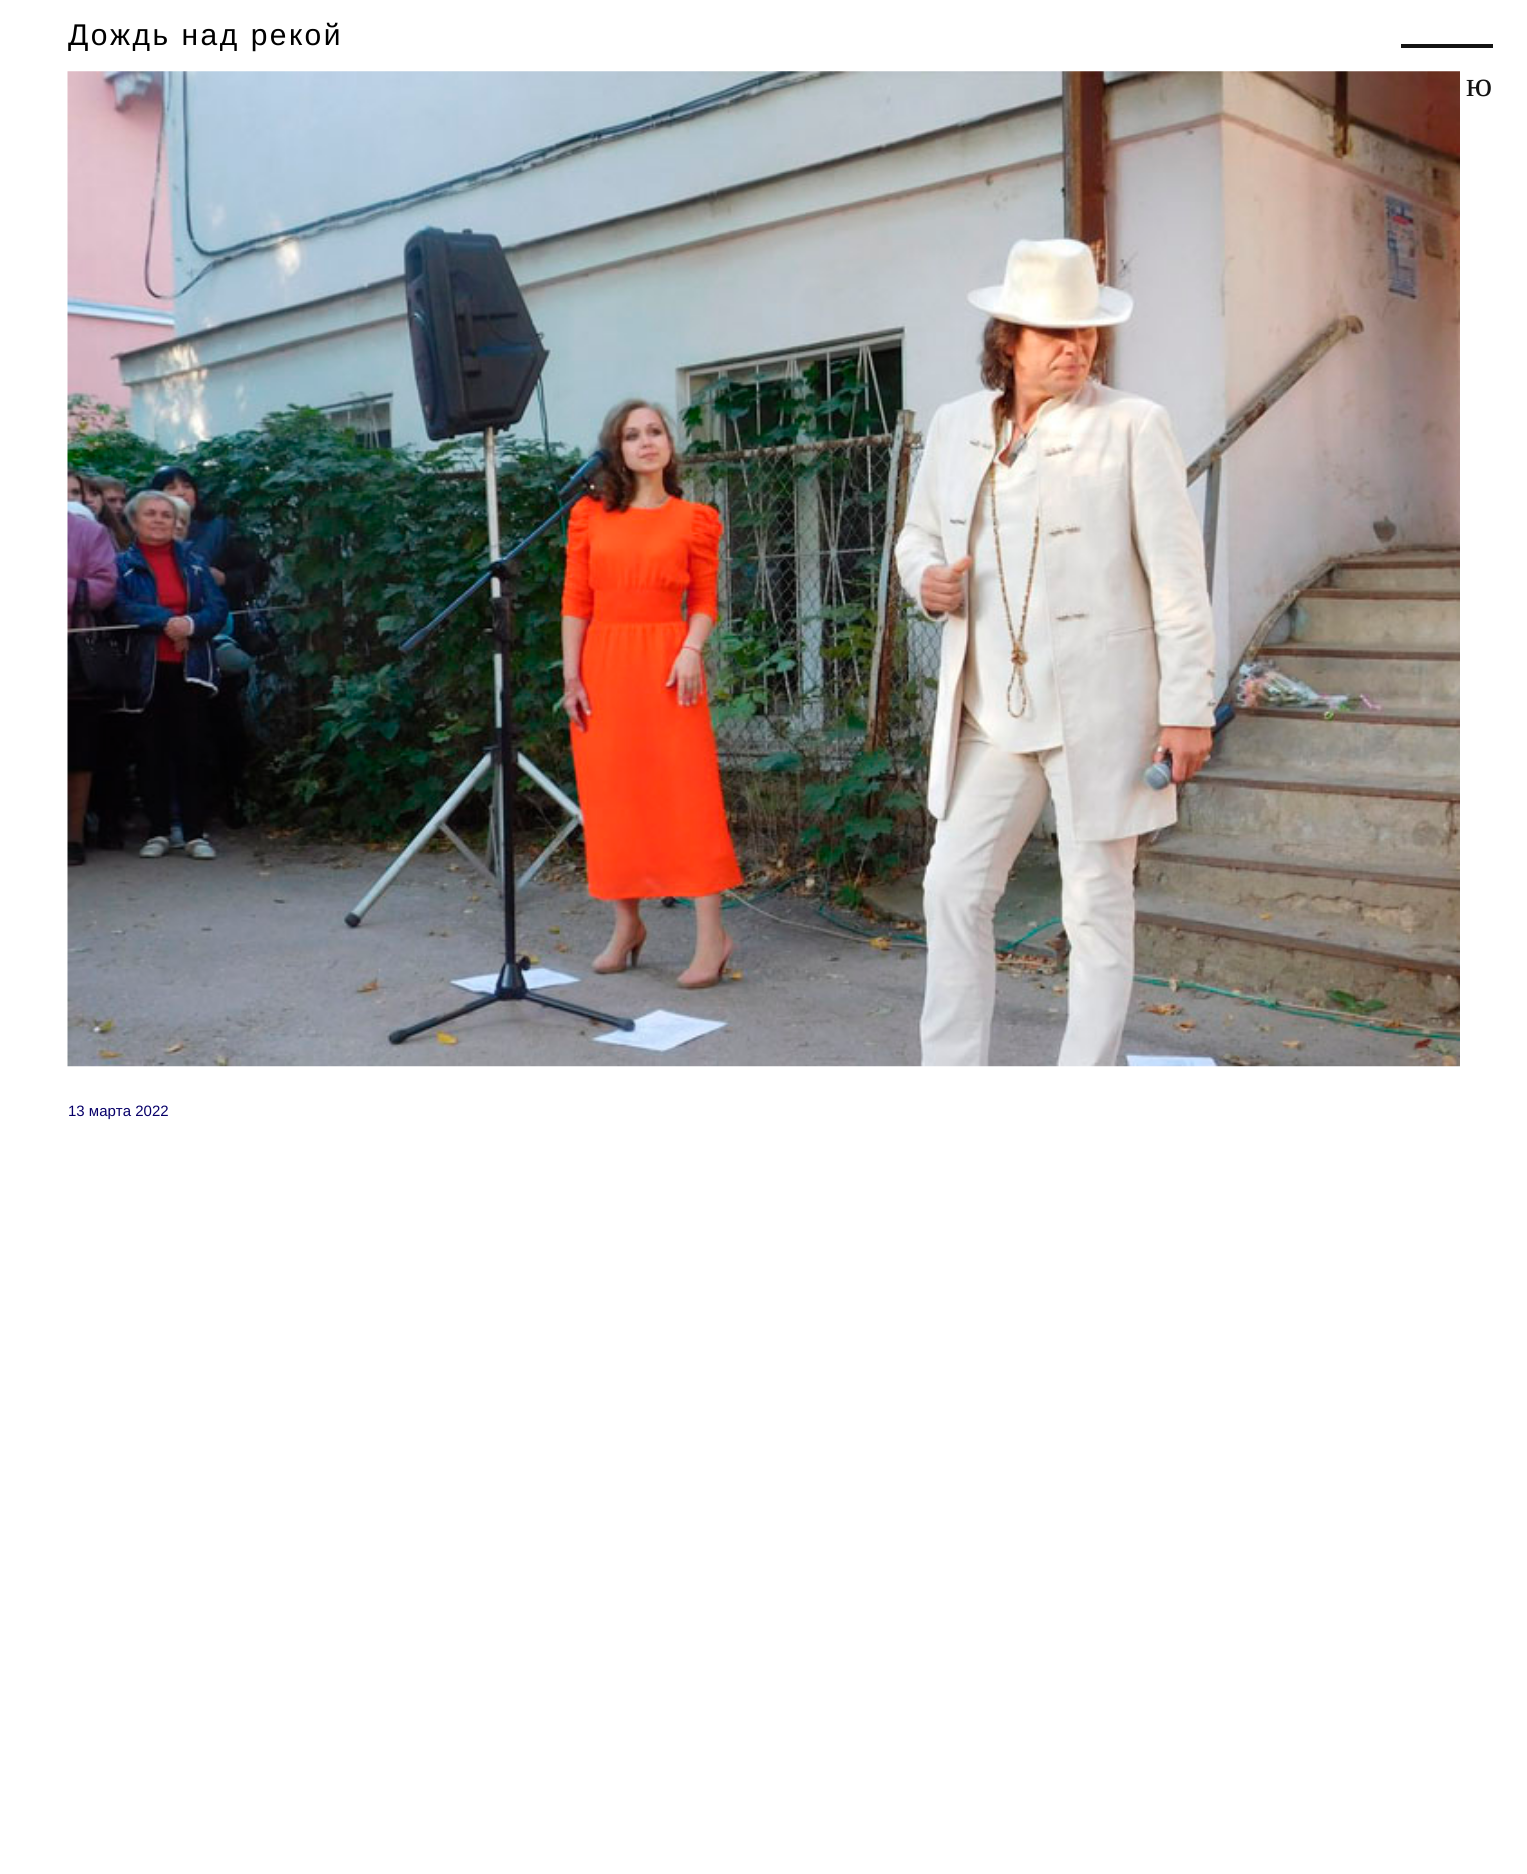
#include <cairo.h>
#include <math.h>
#include <stddef.h>


static void spaced_text(cairo_t *cr, double x, double y, const char *s, double letter, double word) {
    cairo_move_to(cr, x, y);
    while (*s) {
        char ch[5] = {0};
        int n = 0;
        do ch[n++] = *s++; while ((*s & 0xC0) == 0x80);
        cairo_show_text(cr, ch);
        cairo_rel_move_to(cr, letter + word * (*ch == ' '), 0);
    }
}

static void picture(cairo_t *cr, const char *path, double x, double y, double w, double h) {
    cairo_surface_t *image = cairo_image_surface_create_from_png(path);
    cairo_save(cr);
    cairo_set_source_surface(cr, image, x, y);
    cairo_rectangle(cr, x, y, w, h);
    cairo_fill(cr);
    cairo_restore(cr);
    cairo_surface_destroy(image);
}

int main(void) {
    cairo_surface_t *surface = cairo_image_surface_create(CAIRO_FORMAT_RGB24, 1527, 1874);
    cairo_t *cr = cairo_create(surface);
    cairo_font_options_t *options = cairo_font_options_create();
    cairo_font_options_set_hint_metrics(options, CAIRO_HINT_METRICS_OFF);
    cairo_font_options_set_hint_style(options, CAIRO_HINT_STYLE_NONE);
    cairo_set_font_options(cr, options);
    cairo_set_miter_limit(cr, 4);
    cairo_set_source_rgb(cr, 1, 1, 1);
    cairo_paint(cr);
    cairo_select_font_face(cr, "Liberation Sans", CAIRO_FONT_SLANT_NORMAL, CAIRO_FONT_WEIGHT_NORMAL);
    cairo_set_font_size(cr, 30);
    cairo_set_source_rgb(cr, 0, 0, 0);
    spaced_text(cr, 68, 45, "Дождь над рекой", 2.5, 0);
    picture(cr, "img1.png", 67, 71, 1393, 996);
    cairo_set_font_size(cr, 15);
    cairo_set_source_rgb(cr, 0.031, 0, 0.412);
    cairo_move_to(cr, 68, 1116);
    cairo_show_text(cr, "13 марта 2022");
    cairo_set_source_rgb(cr, 0.082, 0.082, 0.082);
    cairo_rectangle(cr, 1401, 44, 92, 4);
    cairo_fill(cr);
    cairo_select_font_face(cr, "Liberation Serif", CAIRO_FONT_SLANT_NORMAL, CAIRO_FONT_WEIGHT_NORMAL);
    cairo_set_font_size(cr, 35);
    cairo_move_to(cr, 1466, 96);
    cairo_show_text(cr, "ю");
    cairo_surface_write_to_png(surface, "page.png");
    cairo_font_options_destroy(options);
    cairo_destroy(cr);
    cairo_surface_destroy(surface);
    return 0;
}
